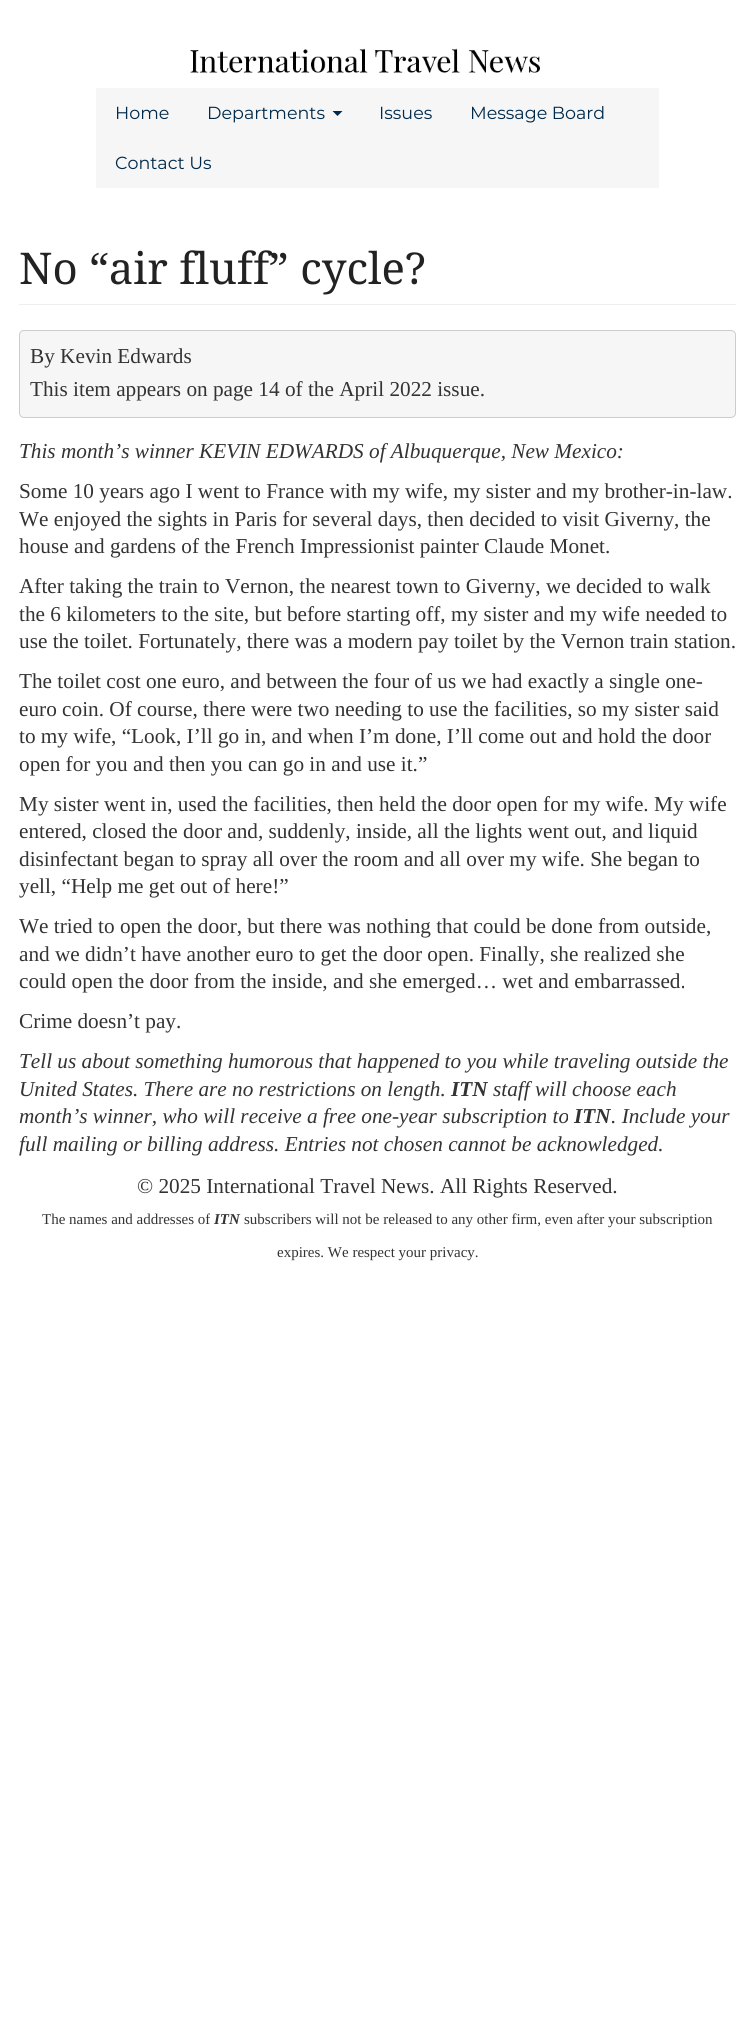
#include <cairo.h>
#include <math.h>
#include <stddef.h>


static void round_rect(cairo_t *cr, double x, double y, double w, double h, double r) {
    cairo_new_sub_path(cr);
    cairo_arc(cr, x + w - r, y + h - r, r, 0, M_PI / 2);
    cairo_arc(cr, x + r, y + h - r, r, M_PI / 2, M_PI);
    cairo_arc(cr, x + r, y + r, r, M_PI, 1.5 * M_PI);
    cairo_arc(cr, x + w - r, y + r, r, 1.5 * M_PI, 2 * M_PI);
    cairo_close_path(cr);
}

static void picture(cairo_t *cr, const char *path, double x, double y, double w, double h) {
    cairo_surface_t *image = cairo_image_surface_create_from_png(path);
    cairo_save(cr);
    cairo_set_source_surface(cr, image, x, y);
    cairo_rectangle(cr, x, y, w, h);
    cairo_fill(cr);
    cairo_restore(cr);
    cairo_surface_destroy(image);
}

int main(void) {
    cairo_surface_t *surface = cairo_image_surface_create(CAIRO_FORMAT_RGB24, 755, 2043);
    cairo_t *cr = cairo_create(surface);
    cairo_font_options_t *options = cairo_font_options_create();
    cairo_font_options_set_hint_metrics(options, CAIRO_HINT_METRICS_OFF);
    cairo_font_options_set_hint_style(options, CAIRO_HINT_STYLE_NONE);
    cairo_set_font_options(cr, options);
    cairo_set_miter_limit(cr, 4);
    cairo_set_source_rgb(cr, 1, 1, 1);
    cairo_paint(cr);
    picture(cr, "img1.png", 190, 48, 350, 25);
    cairo_set_source_rgb(cr, 0.961, 0.961, 0.961);
    cairo_rectangle(cr, 96, 88, 563, 100);
    cairo_fill(cr);
    cairo_select_font_face(cr, "Montserrat Thin", CAIRO_FONT_SLANT_NORMAL, CAIRO_FONT_WEIGHT_NORMAL);
    cairo_set_font_size(cr, 17.5);
    cairo_set_source_rgb(cr, 0, 0.161, 0.29);
    cairo_move_to(cr, 115, 119);
    cairo_show_text(cr, "Home");
    cairo_move_to(cr, 207, 119);
    cairo_show_text(cr, "Departments");
    cairo_new_path(cr);
    cairo_move_to(cr, 332.5, 111);
    cairo_line_to(cr, 342.5, 111);
    cairo_line_to(cr, 337.5, 116);
    cairo_close_path(cr);
    cairo_fill(cr);
    cairo_move_to(cr, 379, 119);
    cairo_show_text(cr, "Issues");
    cairo_move_to(cr, 470, 119);
    cairo_show_text(cr, "Message Board");
    cairo_move_to(cr, 115, 169);
    cairo_show_text(cr, "Contact Us");
    cairo_set_source_rgb(cr, 0.933, 0.933, 0.933);
    cairo_rectangle(cr, 19, 304, 717, 1);
    cairo_fill(cr);
    cairo_select_font_face(cr, "Noto Serif", CAIRO_FONT_SLANT_NORMAL, CAIRO_FONT_WEIGHT_NORMAL);
    cairo_set_font_size(cr, 43.75);
    cairo_set_source_rgb(cr, 0.133, 0.133, 0.133);
    cairo_move_to(cr, 19, 284);
    cairo_show_text(cr, "No “air fluff” cycle?");
    cairo_set_source_rgb(cr, 0.961, 0.961, 0.961);
    round_rect(cr, 19.5, 330.5, 716, 87, 4.5);
    cairo_fill_preserve(cr);
    cairo_set_source_rgb(cr, 0.8, 0.8, 0.8);
    cairo_set_line_width(cr, 1);
    cairo_stroke(cr);
    cairo_select_font_face(cr, "Liberation Serif", CAIRO_FONT_SLANT_NORMAL, CAIRO_FONT_WEIGHT_NORMAL);
    cairo_set_font_size(cr, 21.25);
    cairo_set_source_rgb(cr, 0.2, 0.2, 0.2);
    cairo_move_to(cr, 30, 363);
    cairo_show_text(cr, "By Kevin Edwards");
    cairo_move_to(cr, 30, 396);
    cairo_show_text(cr, "This item appears on page 14 of the April 2022 issue.");
    cairo_select_font_face(cr, "Liberation Serif", CAIRO_FONT_SLANT_ITALIC, CAIRO_FONT_WEIGHT_NORMAL);
    cairo_move_to(cr, 19, 458);
    cairo_show_text(cr, "This month’s winner KEVIN EDWARDS of Albuquerque, New Mexico:");
    cairo_select_font_face(cr, "Liberation Serif", CAIRO_FONT_SLANT_NORMAL, CAIRO_FONT_WEIGHT_NORMAL);
    cairo_move_to(cr, 19, 498);
    cairo_show_text(cr, "Some 10 years ago I went to France with my wife, my sister and my brother-in-law.");
    cairo_move_to(cr, 19, 526);
    cairo_show_text(cr, "We enjoyed the sights in Paris for several days, then decided to visit Giverny, the");
    cairo_move_to(cr, 19, 553);
    cairo_show_text(cr, "house and gardens of the French Impressionist painter Claude Monet.");
    cairo_move_to(cr, 19, 593);
    cairo_show_text(cr, "After taking the train to Vernon, the nearest town to Giverny, we decided to walk");
    cairo_move_to(cr, 19, 621);
    cairo_show_text(cr, "the 6 kilometers to the site, but before starting off, my sister and my wife needed to");
    cairo_move_to(cr, 19, 648);
    cairo_show_text(cr, "use the toilet. Fortunately, there was a modern pay toilet by the Vernon train station.");
    cairo_move_to(cr, 19, 688);
    cairo_show_text(cr, "The toilet cost one euro, and between the four of us we had exactly a single one-");
    cairo_move_to(cr, 19, 716);
    cairo_show_text(cr, "euro coin. Of course, there were two needing to use the facilities, so my sister said");
    cairo_move_to(cr, 19, 743);
    cairo_show_text(cr, "to my wife, “Look, I’ll go in, and when I’m done, I’ll come out and hold the door");
    cairo_move_to(cr, 19, 771);
    cairo_show_text(cr, "open for you and then you can go in and use it.”");
    cairo_move_to(cr, 19, 811);
    cairo_show_text(cr, "My sister went in, used the facilities, then held the door open for my wife. My wife");
    cairo_move_to(cr, 19, 838);
    cairo_show_text(cr, "entered, closed the door and, suddenly, inside, all the lights went out, and liquid");
    cairo_move_to(cr, 19, 866);
    cairo_show_text(cr, "disinfectant began to spray all over the room and all over my wife. She began to");
    cairo_move_to(cr, 19, 893);
    cairo_show_text(cr, "yell, “Help me get out of here!”");
    cairo_move_to(cr, 19, 933);
    cairo_show_text(cr, "We tried to open the door, but there was nothing that could be done from outside,");
    cairo_move_to(cr, 19, 961);
    cairo_show_text(cr, "and we didn’t have another euro to get the door open. Finally, she realized she");
    cairo_move_to(cr, 19, 988);
    cairo_show_text(cr, "could open the door from the inside, and she emerged… wet and embarrassed.");
    cairo_move_to(cr, 19, 1028);
    cairo_show_text(cr, "Crime doesn’t pay.");
    cairo_select_font_face(cr, "Liberation Serif", CAIRO_FONT_SLANT_ITALIC, CAIRO_FONT_WEIGHT_NORMAL);
    cairo_move_to(cr, 19, 1068);
    cairo_show_text(cr, "Tell us about something humorous that happened to you while traveling outside the");
    cairo_move_to(cr, 19, 1096);
    cairo_show_text(cr, "United States. There are no restrictions on length.");
    cairo_select_font_face(cr, "Liberation Serif", CAIRO_FONT_SLANT_ITALIC, CAIRO_FONT_WEIGHT_BOLD);
    cairo_move_to(cr, 451, 1096);
    cairo_show_text(cr, "ITN");
    cairo_select_font_face(cr, "Liberation Serif", CAIRO_FONT_SLANT_ITALIC, CAIRO_FONT_WEIGHT_NORMAL);
    cairo_move_to(cr, 493, 1096);
    cairo_show_text(cr, "staff will choose each");
    cairo_move_to(cr, 19, 1123);
    cairo_show_text(cr, "month’s winner, who will receive a free one-year subscription to");
    cairo_select_font_face(cr, "Liberation Serif", CAIRO_FONT_SLANT_ITALIC, CAIRO_FONT_WEIGHT_BOLD);
    cairo_move_to(cr, 574, 1123);
    cairo_show_text(cr, "ITN");
    cairo_select_font_face(cr, "Liberation Serif", CAIRO_FONT_SLANT_ITALIC, CAIRO_FONT_WEIGHT_NORMAL);
    cairo_move_to(cr, 611, 1123);
    cairo_show_text(cr, ". Include your");
    cairo_move_to(cr, 19, 1151);
    cairo_show_text(cr, "full mailing or billing address. Entries not chosen cannot be acknowledged.");
    cairo_select_font_face(cr, "Liberation Serif", CAIRO_FONT_SLANT_NORMAL, CAIRO_FONT_WEIGHT_NORMAL);
    cairo_move_to(cr, 137, 1193);
    cairo_show_text(cr, "© 2025 International Travel News. All Rights Reserved.");
    cairo_set_font_size(cr, 15);
    cairo_move_to(cr, 42, 1224);
    cairo_show_text(cr, "The names and addresses of");
    cairo_select_font_face(cr, "Liberation Serif", CAIRO_FONT_SLANT_ITALIC, CAIRO_FONT_WEIGHT_BOLD);
    cairo_move_to(cr, 214, 1224);
    cairo_show_text(cr, "ITN");
    cairo_select_font_face(cr, "Liberation Serif", CAIRO_FONT_SLANT_NORMAL, CAIRO_FONT_WEIGHT_NORMAL);
    cairo_move_to(cr, 244, 1224);
    cairo_show_text(cr, "subscribers will not be released to any other firm, even after your subscription");
    cairo_move_to(cr, 277, 1257);
    cairo_show_text(cr, "expires. We respect your privacy.");
    cairo_surface_write_to_png(surface, "page.png");
    cairo_font_options_destroy(options);
    cairo_destroy(cr);
    cairo_surface_destroy(surface);
    return 0;
}
